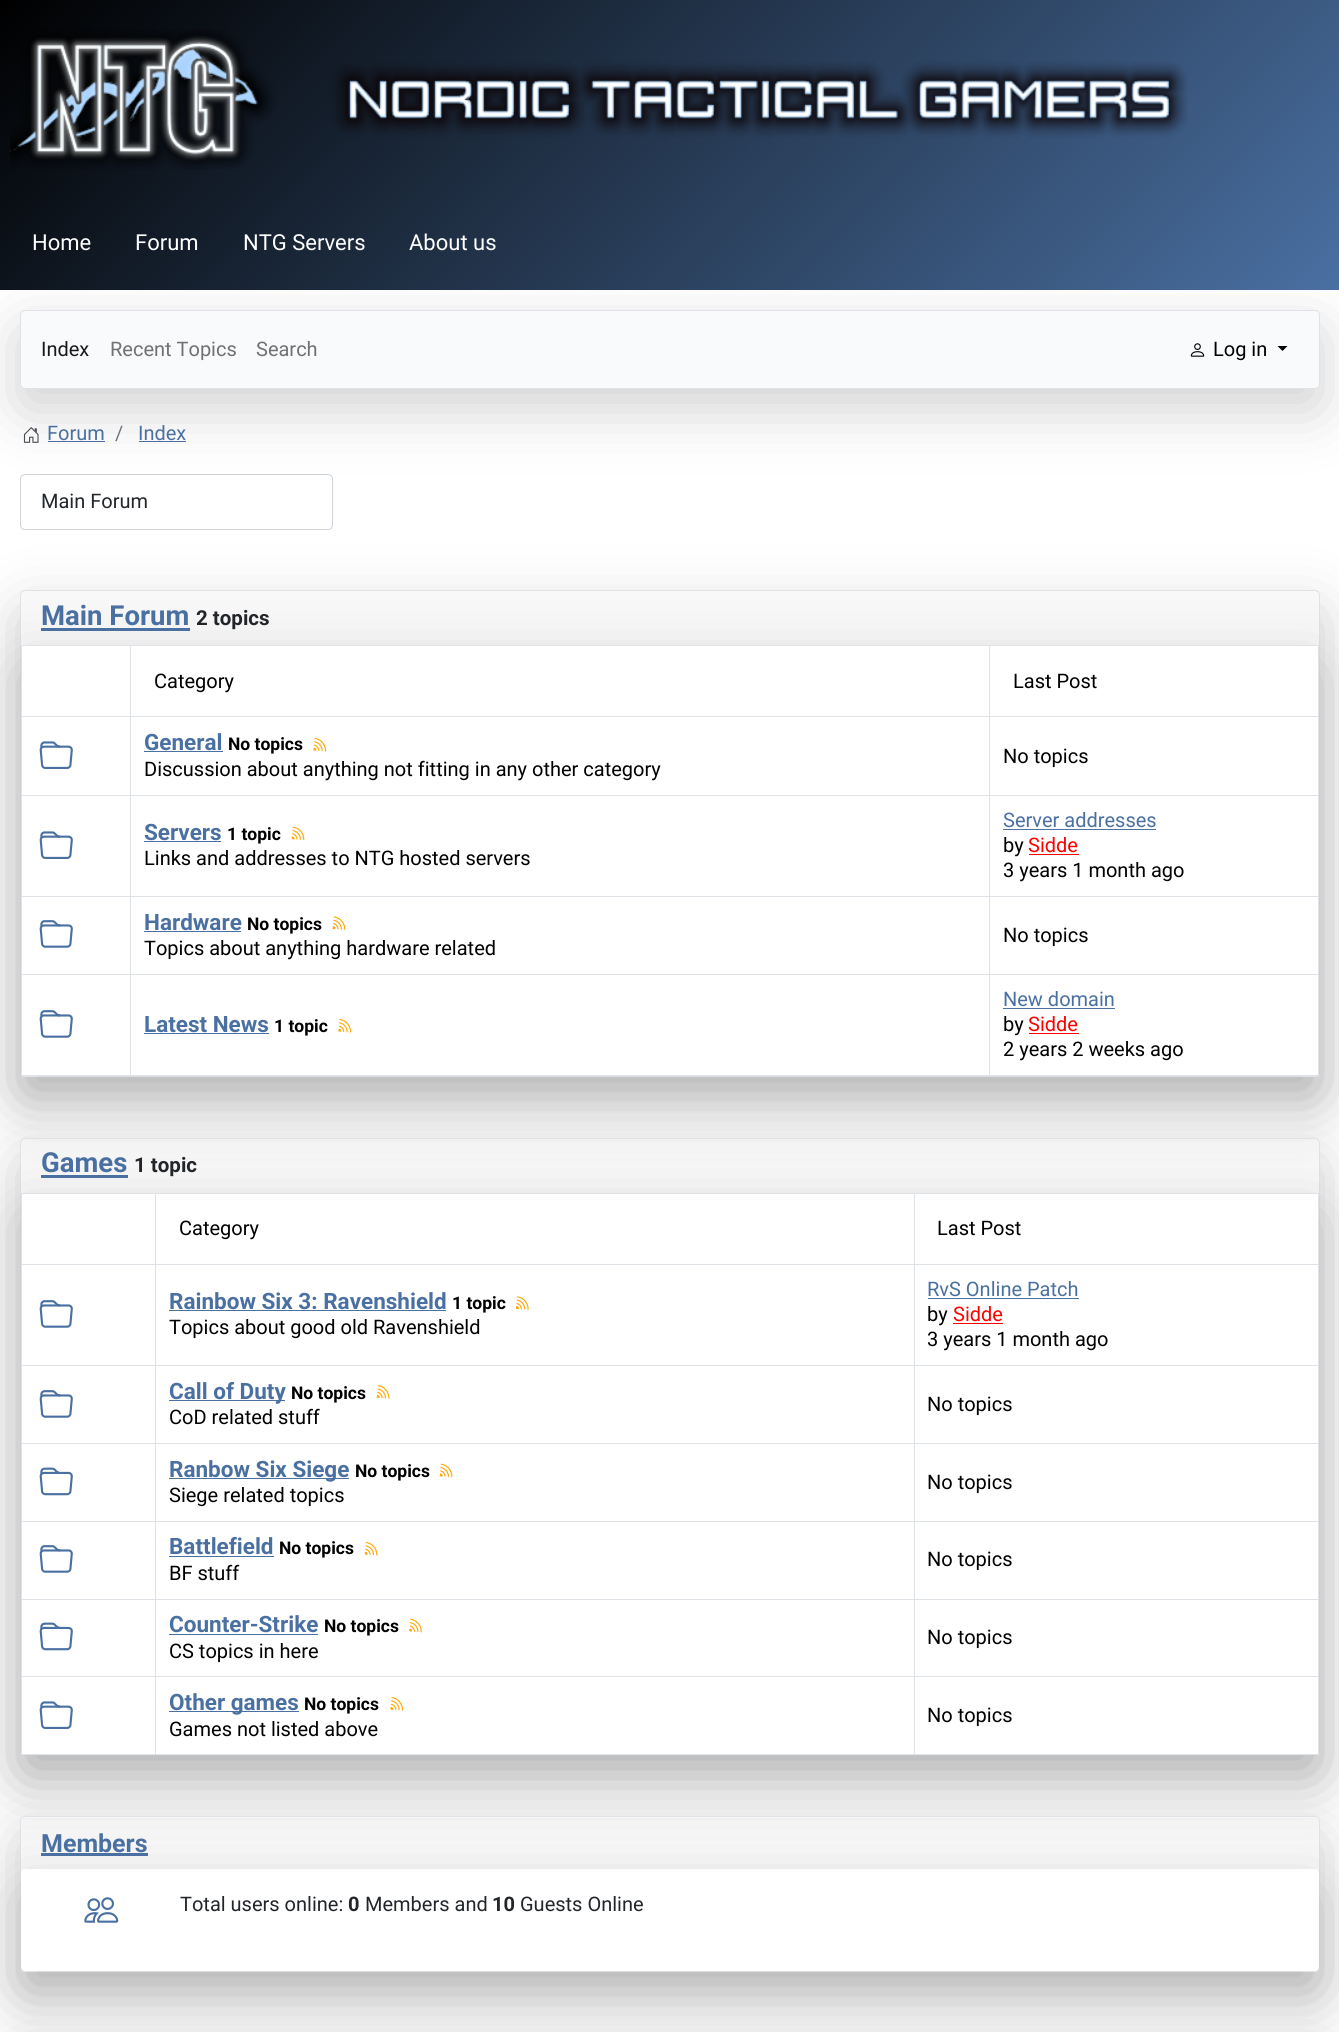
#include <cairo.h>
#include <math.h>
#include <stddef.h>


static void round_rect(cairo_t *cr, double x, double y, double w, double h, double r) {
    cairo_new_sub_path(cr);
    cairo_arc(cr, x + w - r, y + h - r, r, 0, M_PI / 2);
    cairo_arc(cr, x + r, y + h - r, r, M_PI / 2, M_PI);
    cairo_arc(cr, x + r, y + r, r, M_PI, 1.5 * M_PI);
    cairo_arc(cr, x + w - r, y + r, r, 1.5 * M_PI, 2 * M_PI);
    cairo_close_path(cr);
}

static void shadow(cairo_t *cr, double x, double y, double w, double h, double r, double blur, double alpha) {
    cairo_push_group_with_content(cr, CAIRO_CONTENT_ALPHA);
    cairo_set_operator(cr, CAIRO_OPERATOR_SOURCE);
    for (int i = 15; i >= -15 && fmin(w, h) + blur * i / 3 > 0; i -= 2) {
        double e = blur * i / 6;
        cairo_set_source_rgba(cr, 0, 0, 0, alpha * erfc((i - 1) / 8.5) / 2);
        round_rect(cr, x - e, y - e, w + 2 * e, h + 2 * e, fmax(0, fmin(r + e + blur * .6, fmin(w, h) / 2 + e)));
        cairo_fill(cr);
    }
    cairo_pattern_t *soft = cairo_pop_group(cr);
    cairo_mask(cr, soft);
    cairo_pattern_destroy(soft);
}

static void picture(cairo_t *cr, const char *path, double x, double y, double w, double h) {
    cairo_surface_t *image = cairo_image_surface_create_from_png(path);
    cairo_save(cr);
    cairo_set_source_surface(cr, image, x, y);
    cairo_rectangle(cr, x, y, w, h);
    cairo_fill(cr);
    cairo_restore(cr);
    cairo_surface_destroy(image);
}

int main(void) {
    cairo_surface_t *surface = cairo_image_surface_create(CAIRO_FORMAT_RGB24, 1339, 2032);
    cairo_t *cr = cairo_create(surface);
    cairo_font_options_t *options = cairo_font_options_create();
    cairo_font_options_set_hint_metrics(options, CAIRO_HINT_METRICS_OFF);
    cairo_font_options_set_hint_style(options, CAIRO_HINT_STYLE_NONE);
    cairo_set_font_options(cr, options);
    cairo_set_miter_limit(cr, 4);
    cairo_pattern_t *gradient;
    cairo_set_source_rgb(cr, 1, 1, 1);
    cairo_paint(cr);
    round_rect(cr, 20.5, 474.5, 312, 55, 4.5);
    cairo_set_source_rgb(cr, 0.808, 0.831, 0.855);
    cairo_set_line_width(cr, 1);
    cairo_stroke(cr);
    cairo_set_source_rgb(cr, 0, 0, 0);
    shadow(cr, 20, 330, 1300, 79, 5, 30, 0.18);
    gradient = cairo_pattern_create_linear(262, -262, 1078, 553);
    cairo_pattern_add_color_stop_rgba(gradient, 0, 0, 0, 0, 1);
    cairo_pattern_add_color_stop_rgba(gradient, 1, 0.29, 0.439, 0.635, 1);
    cairo_set_source(cr, gradient);
    cairo_pattern_destroy(gradient);
    cairo_rectangle(cr, 0, 0, 1339, 290);
    cairo_fill(cr);
    picture(cr, "img1.png", 10, 29, 1178, 141);
    cairo_select_font_face(cr, "Roboto", CAIRO_FONT_SLANT_NORMAL, CAIRO_FONT_WEIGHT_NORMAL);
    cairo_set_font_size(cr, 22);
    cairo_set_source_rgb(cr, 1, 1, 1);
    cairo_move_to(cr, 32, 250);
    cairo_show_text(cr, "Home");
    cairo_move_to(cr, 135, 250);
    cairo_show_text(cr, "Forum");
    cairo_move_to(cr, 243, 250);
    cairo_show_text(cr, "NTG Servers");
    cairo_move_to(cr, 409, 250);
    cairo_show_text(cr, "About us");
    cairo_set_source_rgb(cr, 0.976, 0.98, 0.984);
    round_rect(cr, 20.5, 310.5, 1299, 78, 4.5);
    cairo_fill_preserve(cr);
    cairo_set_source_rgb(cr, 0.875, 0.89, 0.906);
    cairo_stroke(cr);
    cairo_set_font_size(cr, 20);
    cairo_set_source_rgb(cr, 0.098, 0.098, 0.098);
    cairo_move_to(cr, 41, 356);
    cairo_show_text(cr, "Index");
    cairo_set_source_rgb(cr, 0.439, 0.443, 0.443);
    cairo_move_to(cr, 110, 356);
    cairo_show_text(cr, "Recent Topics");
    cairo_move_to(cr, 256, 356);
    cairo_show_text(cr, "Search");
    picture(cr, "img2.png", 1190, 343, 15, 14);
    cairo_set_source_rgb(cr, 0, 0, 0);
    cairo_move_to(cr, 1213, 356);
    cairo_show_text(cr, "Log in");
    cairo_new_path(cr);
    cairo_move_to(cr, 1277.5, 346);
    cairo_line_to(cr, 1287.5, 346);
    cairo_line_to(cr, 1282.5, 351);
    cairo_close_path(cr);
    cairo_fill(cr);
    picture(cr, "img3.png", 23, 427, 16, 16);
    cairo_set_source_rgb(cr, 0.29, 0.439, 0.635);
    cairo_move_to(cr, 47, 440);
    cairo_show_text(cr, "Forum");
    cairo_rectangle(cr, 48, 441, 57, 1);
    cairo_fill(cr);
    cairo_set_source_rgb(cr, 0.427, 0.459, 0.494);
    cairo_move_to(cr, 115, 440);
    cairo_show_text(cr, "/");
    cairo_set_source_rgb(cr, 0.29, 0.439, 0.635);
    cairo_move_to(cr, 138, 440);
    cairo_show_text(cr, "Index");
    cairo_rectangle(cr, 139, 441, 47, 1);
    cairo_fill(cr);
    cairo_set_source_rgb(cr, 0.133, 0.149, 0.165);
    cairo_move_to(cr, 41, 508);
    cairo_show_text(cr, "Main Forum");
    cairo_save(cr);
    cairo_set_fill_rule(cr, CAIRO_FILL_RULE_EVEN_ODD);
    cairo_new_path(cr);
    cairo_move_to(cr, 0, 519);
    cairo_line_to(cr, 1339, 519);
    cairo_line_to(cr, 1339, 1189);
    cairo_line_to(cr, 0, 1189);
    cairo_close_path(cr);
    cairo_move_to(cr, 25, 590);
    cairo_line_to(cr, 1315, 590);
    cairo_curve_to(cr, 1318, 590, 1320, 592, 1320, 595);
    cairo_line_to(cr, 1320, 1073);
    cairo_curve_to(cr, 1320, 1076, 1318, 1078, 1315, 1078);
    cairo_line_to(cr, 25, 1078);
    cairo_curve_to(cr, 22, 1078, 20, 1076, 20, 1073);
    cairo_line_to(cr, 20, 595);
    cairo_curve_to(cr, 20, 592, 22, 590, 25, 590);
    cairo_close_path(cr);
    cairo_clip(cr);
    cairo_set_source_rgb(cr, 0, 0, 0);
    shadow(cr, 20, 610, 1300, 488, 5, 30, 0.18);
    cairo_restore(cr);
    round_rect(cr, 20.5, 590.5, 1299, 487, 4.5);
    cairo_set_source_rgb(cr, 0.875, 0.89, 0.906);
    cairo_stroke(cr);
    cairo_set_source_rgba(cr, 0, 0, 0, 0.03);
    cairo_rectangle(cr, 21, 591, 1298, 54);
    cairo_fill(cr);
    cairo_save(cr);
    cairo_set_fill_rule(cr, CAIRO_FILL_RULE_EVEN_ODD);
    cairo_new_path(cr);
    cairo_move_to(cr, 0, 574);
    cairo_line_to(cr, 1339, 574);
    cairo_line_to(cr, 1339, 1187);
    cairo_line_to(cr, 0, 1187);
    cairo_close_path(cr);
    cairo_move_to(cr, 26, 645);
    cairo_line_to(cr, 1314, 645);
    cairo_curve_to(cr, 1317, 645, 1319, 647, 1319, 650);
    cairo_line_to(cr, 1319, 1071);
    cairo_curve_to(cr, 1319, 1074, 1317, 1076, 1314, 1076);
    cairo_line_to(cr, 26, 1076);
    cairo_curve_to(cr, 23, 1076, 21, 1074, 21, 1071);
    cairo_line_to(cr, 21, 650);
    cairo_curve_to(cr, 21, 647, 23, 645, 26, 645);
    cairo_close_path(cr);
    cairo_clip(cr);
    cairo_set_source_rgb(cr, 0, 0, 0);
    shadow(cr, 21, 665, 1298, 431, 5, 30, 0.18);
    cairo_restore(cr);
    cairo_select_font_face(cr, "Roboto", CAIRO_FONT_SLANT_NORMAL, CAIRO_FONT_WEIGHT_BOLD);
    cairo_set_font_size(cr, 27.5);
    cairo_set_source_rgb(cr, 0.29, 0.439, 0.635);
    cairo_move_to(cr, 41, 625);
    cairo_show_text(cr, "Main Forum");
    cairo_rectangle(cr, 41, 628, 149, 3);
    cairo_fill(cr);
    cairo_set_font_size(cr, 20.5);
    cairo_set_source_rgb(cr, 0.133, 0.149, 0.165);
    cairo_move_to(cr, 196, 625);
    cairo_show_text(cr, "2 topics");
    cairo_set_source_rgb(cr, 0.875, 0.89, 0.906);
    cairo_rectangle(cr, 21, 645, 1298, 1);
    cairo_fill(cr);
    cairo_select_font_face(cr, "Roboto", CAIRO_FONT_SLANT_NORMAL, CAIRO_FONT_WEIGHT_NORMAL);
    cairo_set_font_size(cr, 20);
    cairo_set_source_rgb(cr, 0, 0, 0);
    cairo_move_to(cr, 154, 688);
    cairo_show_text(cr, "Category");
    cairo_move_to(cr, 1013, 688);
    cairo_show_text(cr, "Last Post");
    cairo_set_source_rgb(cr, 0.875, 0.89, 0.906);
    cairo_rectangle(cr, 21, 716, 1298, 1);
    cairo_fill(cr);
    picture(cr, "img4.png", 39, 741, 34, 28);
    cairo_select_font_face(cr, "Roboto", CAIRO_FONT_SLANT_NORMAL, CAIRO_FONT_WEIGHT_BOLD);
    cairo_set_font_size(cr, 22.5);
    cairo_set_source_rgb(cr, 0.29, 0.439, 0.635);
    cairo_move_to(cr, 144, 750);
    cairo_show_text(cr, "General");
    cairo_rectangle(cr, 144, 751, 79, 1);
    cairo_fill(cr);
    cairo_set_font_size(cr, 17.5);
    cairo_set_source_rgb(cr, 0, 0, 0);
    cairo_move_to(cr, 228, 750);
    cairo_show_text(cr, "No topics");
    picture(cr, "img5.png", 313, 737, 14, 15);
    cairo_select_font_face(cr, "Roboto", CAIRO_FONT_SLANT_NORMAL, CAIRO_FONT_WEIGHT_NORMAL);
    cairo_set_font_size(cr, 20);
    cairo_move_to(cr, 144, 776);
    cairo_show_text(cr, "Discussion about anything not fitting in any other category");
    cairo_move_to(cr, 1003, 763);
    cairo_show_text(cr, "No topics");
    cairo_set_source_rgb(cr, 0.875, 0.89, 0.906);
    cairo_rectangle(cr, 21, 795, 1298, 1);
    cairo_fill(cr);
    picture(cr, "img4.png", 39, 831, 34, 28);
    cairo_select_font_face(cr, "Roboto", CAIRO_FONT_SLANT_NORMAL, CAIRO_FONT_WEIGHT_BOLD);
    cairo_set_font_size(cr, 22.5);
    cairo_set_source_rgb(cr, 0.29, 0.439, 0.635);
    cairo_move_to(cr, 144, 840);
    cairo_show_text(cr, "Servers");
    cairo_rectangle(cr, 144, 841, 77, 1);
    cairo_fill(cr);
    cairo_set_font_size(cr, 17.5);
    cairo_set_source_rgb(cr, 0, 0, 0);
    cairo_move_to(cr, 227, 840);
    cairo_show_text(cr, "1 topic");
    picture(cr, "img6.png", 291, 826, 14, 15);
    cairo_select_font_face(cr, "Roboto", CAIRO_FONT_SLANT_NORMAL, CAIRO_FONT_WEIGHT_NORMAL);
    cairo_set_font_size(cr, 20);
    cairo_move_to(cr, 144, 865);
    cairo_show_text(cr, "Links and addresses to NTG hosted servers");
    cairo_set_source_rgb(cr, 0.29, 0.439, 0.635);
    cairo_move_to(cr, 1003, 827);
    cairo_show_text(cr, "Server addresses");
    cairo_rectangle(cr, 1003, 829, 153, 1);
    cairo_fill(cr);
    cairo_set_source_rgb(cr, 0, 0, 0);
    cairo_move_to(cr, 1003, 852);
    cairo_show_text(cr, "by");
    cairo_set_source_rgb(cr, 1, 0, 0);
    cairo_move_to(cr, 1028, 852);
    cairo_show_text(cr, "Sidde");
    cairo_rectangle(cr, 1029, 854, 50, 1);
    cairo_fill(cr);
    cairo_set_source_rgb(cr, 0, 0, 0);
    cairo_move_to(cr, 1003, 877);
    cairo_show_text(cr, "3 years 1 month ago");
    cairo_set_source_rgb(cr, 0.875, 0.89, 0.906);
    cairo_rectangle(cr, 21, 896, 1298, 1);
    cairo_fill(cr);
    picture(cr, "img7.png", 39, 920, 34, 28);
    cairo_select_font_face(cr, "Roboto", CAIRO_FONT_SLANT_NORMAL, CAIRO_FONT_WEIGHT_BOLD);
    cairo_set_font_size(cr, 22.5);
    cairo_set_source_rgb(cr, 0.29, 0.439, 0.635);
    cairo_move_to(cr, 144, 930);
    cairo_show_text(cr, "Hardware");
    cairo_rectangle(cr, 144, 931, 97, 1);
    cairo_fill(cr);
    cairo_set_font_size(cr, 17.5);
    cairo_set_source_rgb(cr, 0, 0, 0);
    cairo_move_to(cr, 247, 930);
    cairo_show_text(cr, "No topics");
    picture(cr, "img8.png", 332, 916, 14, 14);
    cairo_select_font_face(cr, "Roboto", CAIRO_FONT_SLANT_NORMAL, CAIRO_FONT_WEIGHT_NORMAL);
    cairo_set_font_size(cr, 20);
    cairo_move_to(cr, 144, 955);
    cairo_show_text(cr, "Topics about anything hardware related");
    cairo_move_to(cr, 1003, 942);
    cairo_show_text(cr, "No topics");
    cairo_set_source_rgb(cr, 0.875, 0.89, 0.906);
    cairo_rectangle(cr, 21, 974, 1298, 1);
    cairo_fill(cr);
    cairo_rectangle(cr, 21, 1075, 1298, 1);
    cairo_fill(cr);
    cairo_rectangle(cr, 21, 645, 1, 431);
    cairo_fill(cr);
    picture(cr, "img7.png", 39, 1010, 34, 28);
    cairo_rectangle(cr, 130, 645, 1, 431);
    cairo_fill(cr);
    cairo_select_font_face(cr, "Roboto", CAIRO_FONT_SLANT_NORMAL, CAIRO_FONT_WEIGHT_BOLD);
    cairo_set_font_size(cr, 22.5);
    cairo_set_source_rgb(cr, 0.29, 0.439, 0.635);
    cairo_move_to(cr, 144, 1032);
    cairo_show_text(cr, "Latest News");
    cairo_rectangle(cr, 144, 1033, 125, 1);
    cairo_fill(cr);
    cairo_set_font_size(cr, 17.5);
    cairo_set_source_rgb(cr, 0, 0, 0);
    cairo_move_to(cr, 274, 1032);
    cairo_show_text(cr, "1 topic");
    picture(cr, "img9.png", 338, 1019, 14, 14);
    cairo_set_source_rgb(cr, 0.875, 0.89, 0.906);
    cairo_rectangle(cr, 1318, 645, 1, 431);
    cairo_fill(cr);
    cairo_rectangle(cr, 989, 645, 1, 431);
    cairo_fill(cr);
    cairo_select_font_face(cr, "Roboto", CAIRO_FONT_SLANT_NORMAL, CAIRO_FONT_WEIGHT_NORMAL);
    cairo_set_font_size(cr, 20);
    cairo_set_source_rgb(cr, 0.29, 0.439, 0.635);
    cairo_move_to(cr, 1003, 1006);
    cairo_show_text(cr, "New domain");
    cairo_rectangle(cr, 1003, 1008, 112, 1);
    cairo_fill(cr);
    cairo_set_source_rgb(cr, 0, 0, 0);
    cairo_move_to(cr, 1003, 1031);
    cairo_show_text(cr, "by");
    cairo_set_source_rgb(cr, 1, 0, 0);
    cairo_move_to(cr, 1028, 1031);
    cairo_show_text(cr, "Sidde");
    cairo_rectangle(cr, 1029, 1033, 50, 1);
    cairo_fill(cr);
    cairo_set_source_rgb(cr, 0, 0, 0);
    cairo_move_to(cr, 1003, 1056);
    cairo_show_text(cr, "2 years 2 weeks ago");
    cairo_save(cr);
    cairo_set_fill_rule(cr, CAIRO_FILL_RULE_EVEN_ODD);
    cairo_new_path(cr);
    cairo_move_to(cr, 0, 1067);
    cairo_line_to(cr, 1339, 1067);
    cairo_line_to(cr, 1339, 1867);
    cairo_line_to(cr, 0, 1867);
    cairo_close_path(cr);
    cairo_move_to(cr, 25, 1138);
    cairo_line_to(cr, 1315, 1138);
    cairo_curve_to(cr, 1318, 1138, 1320, 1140, 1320, 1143);
    cairo_line_to(cr, 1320, 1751);
    cairo_curve_to(cr, 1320, 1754, 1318, 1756, 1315, 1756);
    cairo_line_to(cr, 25, 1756);
    cairo_curve_to(cr, 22, 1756, 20, 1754, 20, 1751);
    cairo_line_to(cr, 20, 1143);
    cairo_curve_to(cr, 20, 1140, 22, 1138, 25, 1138);
    cairo_close_path(cr);
    cairo_clip(cr);
    cairo_set_source_rgb(cr, 0, 0, 0);
    shadow(cr, 20, 1158, 1300, 618, 5, 30, 0.18);
    cairo_restore(cr);
    round_rect(cr, 20.5, 1138.5, 1299, 617, 4.5);
    cairo_set_source_rgb(cr, 0.875, 0.89, 0.906);
    cairo_stroke(cr);
    cairo_set_source_rgba(cr, 0, 0, 0, 0.03);
    cairo_rectangle(cr, 21, 1139, 1298, 54);
    cairo_fill(cr);
    cairo_save(cr);
    cairo_set_fill_rule(cr, CAIRO_FILL_RULE_EVEN_ODD);
    cairo_new_path(cr);
    cairo_move_to(cr, 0, 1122);
    cairo_line_to(cr, 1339, 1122);
    cairo_line_to(cr, 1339, 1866);
    cairo_line_to(cr, 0, 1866);
    cairo_close_path(cr);
    cairo_move_to(cr, 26, 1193);
    cairo_line_to(cr, 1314, 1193);
    cairo_curve_to(cr, 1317, 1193, 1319, 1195, 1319, 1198);
    cairo_line_to(cr, 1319, 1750);
    cairo_curve_to(cr, 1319, 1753, 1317, 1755, 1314, 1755);
    cairo_line_to(cr, 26, 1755);
    cairo_curve_to(cr, 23, 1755, 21, 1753, 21, 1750);
    cairo_line_to(cr, 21, 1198);
    cairo_curve_to(cr, 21, 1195, 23, 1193, 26, 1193);
    cairo_close_path(cr);
    cairo_clip(cr);
    cairo_set_source_rgb(cr, 0, 0, 0);
    shadow(cr, 21, 1213, 1298, 562, 5, 30, 0.18);
    cairo_restore(cr);
    cairo_select_font_face(cr, "Roboto", CAIRO_FONT_SLANT_NORMAL, CAIRO_FONT_WEIGHT_BOLD);
    cairo_set_font_size(cr, 27.5);
    cairo_set_source_rgb(cr, 0.29, 0.439, 0.635);
    cairo_move_to(cr, 41, 1172);
    cairo_show_text(cr, "Games");
    cairo_rectangle(cr, 41, 1175, 87, 3);
    cairo_fill(cr);
    cairo_set_font_size(cr, 20.5);
    cairo_set_source_rgb(cr, 0.133, 0.149, 0.165);
    cairo_move_to(cr, 134, 1172);
    cairo_show_text(cr, "1 topic");
    cairo_set_source_rgb(cr, 0.875, 0.89, 0.906);
    cairo_rectangle(cr, 21, 1193, 1298, 1);
    cairo_fill(cr);
    cairo_select_font_face(cr, "Roboto", CAIRO_FONT_SLANT_NORMAL, CAIRO_FONT_WEIGHT_NORMAL);
    cairo_set_font_size(cr, 20);
    cairo_set_source_rgb(cr, 0, 0, 0);
    cairo_move_to(cr, 179, 1235);
    cairo_show_text(cr, "Category");
    cairo_move_to(cr, 937, 1235);
    cairo_show_text(cr, "Last Post");
    cairo_set_source_rgb(cr, 0.875, 0.89, 0.906);
    cairo_rectangle(cr, 21, 1264, 1298, 1);
    cairo_fill(cr);
    picture(cr, "img7.png", 39, 1300, 34, 28);
    cairo_select_font_face(cr, "Roboto", CAIRO_FONT_SLANT_NORMAL, CAIRO_FONT_WEIGHT_BOLD);
    cairo_set_font_size(cr, 22.5);
    cairo_set_source_rgb(cr, 0.29, 0.439, 0.635);
    cairo_move_to(cr, 169, 1309);
    cairo_show_text(cr, "Rainbow Six 3: Ravenshield");
    cairo_rectangle(cr, 169, 1310, 277, 1);
    cairo_fill(cr);
    cairo_set_font_size(cr, 17.5);
    cairo_set_source_rgb(cr, 0, 0, 0);
    cairo_move_to(cr, 452, 1309);
    cairo_show_text(cr, "1 topic");
    picture(cr, "img10.png", 516, 1296, 13, 14);
    cairo_select_font_face(cr, "Roboto", CAIRO_FONT_SLANT_NORMAL, CAIRO_FONT_WEIGHT_NORMAL);
    cairo_set_font_size(cr, 20);
    cairo_move_to(cr, 169, 1334);
    cairo_show_text(cr, "Topics about good old Ravenshield");
    cairo_set_source_rgb(cr, 0.29, 0.439, 0.635);
    cairo_move_to(cr, 927, 1296);
    cairo_show_text(cr, "RvS Online Patch");
    cairo_rectangle(cr, 928, 1298, 151, 1);
    cairo_fill(cr);
    cairo_set_source_rgb(cr, 0, 0, 0);
    cairo_move_to(cr, 927, 1321);
    cairo_show_text(cr, "by");
    cairo_set_source_rgb(cr, 1, 0, 0);
    cairo_move_to(cr, 953, 1321);
    cairo_show_text(cr, "Sidde");
    cairo_rectangle(cr, 953, 1323, 50, 1);
    cairo_fill(cr);
    cairo_set_source_rgb(cr, 0, 0, 0);
    cairo_move_to(cr, 927, 1346);
    cairo_show_text(cr, "3 years 1 month ago");
    cairo_set_source_rgb(cr, 0.875, 0.89, 0.906);
    cairo_rectangle(cr, 21, 1365, 1298, 1);
    cairo_fill(cr);
    picture(cr, "img7.png", 39, 1390, 34, 28);
    cairo_set_source_rgb(cr, 0.29, 0.439, 0.635);
    cairo_rectangle(cr, 169, 1400, 116, 1);
    cairo_fill(cr);
    cairo_select_font_face(cr, "Roboto", CAIRO_FONT_SLANT_NORMAL, CAIRO_FONT_WEIGHT_BOLD);
    cairo_set_font_size(cr, 22.5);
    cairo_move_to(cr, 169, 1399);
    cairo_show_text(cr, "Call of Duty");
    cairo_set_font_size(cr, 17.5);
    cairo_set_source_rgb(cr, 0, 0, 0);
    cairo_move_to(cr, 291, 1399);
    cairo_show_text(cr, "No topics");
    picture(cr, "img11.png", 376, 1385, 14, 14);
    cairo_select_font_face(cr, "Roboto", CAIRO_FONT_SLANT_NORMAL, CAIRO_FONT_WEIGHT_NORMAL);
    cairo_set_font_size(cr, 20);
    cairo_move_to(cr, 169, 1424);
    cairo_show_text(cr, "CoD related stuff");
    cairo_move_to(cr, 927, 1411);
    cairo_show_text(cr, "No topics");
    cairo_set_source_rgb(cr, 0.875, 0.89, 0.906);
    cairo_rectangle(cr, 21, 1443, 1298, 1);
    cairo_fill(cr);
    picture(cr, "img12.png", 39, 1467, 34, 29);
    cairo_set_source_rgb(cr, 0.29, 0.439, 0.635);
    cairo_rectangle(cr, 169, 1478, 180, 1);
    cairo_fill(cr);
    cairo_select_font_face(cr, "Roboto", CAIRO_FONT_SLANT_NORMAL, CAIRO_FONT_WEIGHT_BOLD);
    cairo_set_font_size(cr, 22.5);
    cairo_move_to(cr, 169, 1477);
    cairo_show_text(cr, "Ranbow Six Siege");
    cairo_set_font_size(cr, 17.5);
    cairo_set_source_rgb(cr, 0, 0, 0);
    cairo_move_to(cr, 355, 1477);
    cairo_show_text(cr, "No topics");
    picture(cr, "img13.png", 439, 1463, 14, 15);
    cairo_select_font_face(cr, "Roboto", CAIRO_FONT_SLANT_NORMAL, CAIRO_FONT_WEIGHT_NORMAL);
    cairo_set_font_size(cr, 20);
    cairo_move_to(cr, 169, 1502);
    cairo_show_text(cr, "Siege related topics");
    cairo_move_to(cr, 927, 1489);
    cairo_show_text(cr, "No topics");
    cairo_set_source_rgb(cr, 0.875, 0.89, 0.906);
    cairo_rectangle(cr, 21, 1521, 1298, 1);
    cairo_fill(cr);
    picture(cr, "img7.png", 39, 1545, 34, 28);
    cairo_select_font_face(cr, "Roboto", CAIRO_FONT_SLANT_NORMAL, CAIRO_FONT_WEIGHT_BOLD);
    cairo_set_font_size(cr, 22.5);
    cairo_set_source_rgb(cr, 0.29, 0.439, 0.635);
    cairo_move_to(cr, 169, 1554);
    cairo_show_text(cr, "Battlefield");
    cairo_rectangle(cr, 169, 1556, 105, 1);
    cairo_fill(cr);
    cairo_set_font_size(cr, 17.5);
    cairo_set_source_rgb(cr, 0, 0, 0);
    cairo_move_to(cr, 279, 1554);
    cairo_show_text(cr, "No topics");
    picture(cr, "img14.png", 364, 1542, 14, 14);
    cairo_select_font_face(cr, "Roboto", CAIRO_FONT_SLANT_NORMAL, CAIRO_FONT_WEIGHT_NORMAL);
    cairo_set_font_size(cr, 20);
    cairo_move_to(cr, 169, 1580);
    cairo_show_text(cr, "BF stuff");
    cairo_move_to(cr, 927, 1566);
    cairo_show_text(cr, "No topics");
    cairo_set_source_rgb(cr, 0.875, 0.89, 0.906);
    cairo_rectangle(cr, 21, 1599, 1298, 1);
    cairo_fill(cr);
    picture(cr, "img12.png", 39, 1622, 34, 29);
    cairo_select_font_face(cr, "Roboto", CAIRO_FONT_SLANT_NORMAL, CAIRO_FONT_WEIGHT_BOLD);
    cairo_set_font_size(cr, 22.5);
    cairo_set_source_rgb(cr, 0.29, 0.439, 0.635);
    cairo_move_to(cr, 169, 1632);
    cairo_show_text(cr, "Counter-Strike");
    cairo_rectangle(cr, 169, 1634, 149, 1);
    cairo_fill(cr);
    cairo_set_font_size(cr, 17.5);
    cairo_set_source_rgb(cr, 0, 0, 0);
    cairo_move_to(cr, 324, 1632);
    cairo_show_text(cr, "No topics");
    picture(cr, "img15.png", 409, 1618, 13, 15);
    cairo_select_font_face(cr, "Roboto", CAIRO_FONT_SLANT_NORMAL, CAIRO_FONT_WEIGHT_NORMAL);
    cairo_set_font_size(cr, 20);
    cairo_move_to(cr, 169, 1658);
    cairo_show_text(cr, "CS topics in here");
    cairo_move_to(cr, 927, 1644);
    cairo_show_text(cr, "No topics");
    cairo_set_source_rgb(cr, 0.875, 0.89, 0.906);
    cairo_rectangle(cr, 21, 1676, 1298, 1);
    cairo_fill(cr);
    cairo_rectangle(cr, 21, 1754, 1298, 1);
    cairo_fill(cr);
    cairo_rectangle(cr, 21, 1193, 1, 562);
    cairo_fill(cr);
    picture(cr, "img4.png", 39, 1701, 34, 28);
    cairo_rectangle(cr, 155, 1193, 1, 562);
    cairo_fill(cr);
    cairo_set_source_rgb(cr, 0.29, 0.439, 0.635);
    cairo_rectangle(cr, 169, 1711, 130, 1);
    cairo_fill(cr);
    cairo_select_font_face(cr, "Roboto", CAIRO_FONT_SLANT_NORMAL, CAIRO_FONT_WEIGHT_BOLD);
    cairo_set_font_size(cr, 22.5);
    cairo_move_to(cr, 169, 1710);
    cairo_show_text(cr, "Other games");
    cairo_set_font_size(cr, 17.5);
    cairo_set_source_rgb(cr, 0, 0, 0);
    cairo_move_to(cr, 304, 1710);
    cairo_show_text(cr, "No topics");
    picture(cr, "img16.png", 390, 1697, 14, 14);
    cairo_select_font_face(cr, "Roboto", CAIRO_FONT_SLANT_NORMAL, CAIRO_FONT_WEIGHT_NORMAL);
    cairo_set_font_size(cr, 20);
    cairo_move_to(cr, 169, 1736);
    cairo_show_text(cr, "Games not listed above");
    cairo_set_source_rgb(cr, 0.875, 0.89, 0.906);
    cairo_rectangle(cr, 1318, 1193, 1, 562);
    cairo_fill(cr);
    cairo_rectangle(cr, 914, 1193, 1, 562);
    cairo_fill(cr);
    cairo_set_source_rgb(cr, 0, 0, 0);
    cairo_move_to(cr, 927, 1722);
    cairo_show_text(cr, "No topics");
    cairo_save(cr);
    cairo_set_fill_rule(cr, CAIRO_FILL_RULE_EVEN_ODD);
    cairo_new_path(cr);
    cairo_move_to(cr, 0, 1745);
    cairo_line_to(cr, 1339, 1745);
    cairo_line_to(cr, 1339, 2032);
    cairo_line_to(cr, 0, 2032);
    cairo_close_path(cr);
    cairo_move_to(cr, 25, 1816);
    cairo_line_to(cr, 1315, 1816);
    cairo_curve_to(cr, 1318, 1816, 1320, 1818, 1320, 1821);
    cairo_line_to(cr, 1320, 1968);
    cairo_curve_to(cr, 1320, 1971, 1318, 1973, 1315, 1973);
    cairo_line_to(cr, 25, 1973);
    cairo_curve_to(cr, 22, 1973, 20, 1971, 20, 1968);
    cairo_line_to(cr, 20, 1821);
    cairo_curve_to(cr, 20, 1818, 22, 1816, 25, 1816);
    cairo_close_path(cr);
    cairo_clip(cr);
    cairo_set_source_rgb(cr, 0, 0, 0);
    shadow(cr, 20, 1836, 1300, 157, 5, 30, 0.18);
    cairo_restore(cr);
    round_rect(cr, 20.5, 1816.5, 1299, 156, 4.5);
    cairo_set_source_rgb(cr, 0.875, 0.89, 0.906);
    cairo_stroke(cr);
    cairo_set_source_rgba(cr, 0, 0, 0, 0.03);
    cairo_rectangle(cr, 21, 1818, 1298, 51);
    cairo_fill(cr);
    cairo_save(cr);
    cairo_set_fill_rule(cr, CAIRO_FILL_RULE_EVEN_ODD);
    cairo_new_path(cr);
    cairo_move_to(cr, 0, 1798);
    cairo_line_to(cr, 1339, 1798);
    cairo_line_to(cr, 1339, 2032);
    cairo_line_to(cr, 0, 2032);
    cairo_close_path(cr);
    cairo_move_to(cr, 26, 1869);
    cairo_line_to(cr, 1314, 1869);
    cairo_curve_to(cr, 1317, 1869, 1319, 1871, 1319, 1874);
    cairo_line_to(cr, 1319, 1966);
    cairo_curve_to(cr, 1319, 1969, 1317, 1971, 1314, 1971);
    cairo_line_to(cr, 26, 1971);
    cairo_curve_to(cr, 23, 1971, 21, 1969, 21, 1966);
    cairo_line_to(cr, 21, 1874);
    cairo_curve_to(cr, 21, 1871, 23, 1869, 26, 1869);
    cairo_close_path(cr);
    cairo_clip(cr);
    cairo_set_source_rgb(cr, 0, 0, 0);
    shadow(cr, 21, 1889, 1298, 102, 5, 30, 0.18);
    cairo_restore(cr);
    cairo_select_font_face(cr, "Roboto", CAIRO_FONT_SLANT_NORMAL, CAIRO_FONT_WEIGHT_BOLD);
    cairo_set_font_size(cr, 25);
    cairo_set_source_rgb(cr, 0.29, 0.439, 0.635);
    cairo_move_to(cr, 41, 1852);
    cairo_show_text(cr, "Members");
    cairo_rectangle(cr, 41, 1853, 107, 3);
    cairo_fill(cr);
    picture(cr, "img17.png", 84, 1897, 35, 26);
    cairo_select_font_face(cr, "Roboto", CAIRO_FONT_SLANT_NORMAL, CAIRO_FONT_WEIGHT_NORMAL);
    cairo_set_font_size(cr, 20);
    cairo_set_source_rgb(cr, 0.133, 0.149, 0.165);
    cairo_move_to(cr, 180, 1911);
    cairo_show_text(cr, "Total users online:");
    cairo_select_font_face(cr, "Roboto", CAIRO_FONT_SLANT_NORMAL, CAIRO_FONT_WEIGHT_BOLD);
    cairo_move_to(cr, 348, 1911);
    cairo_show_text(cr, "0");
    cairo_select_font_face(cr, "Roboto", CAIRO_FONT_SLANT_NORMAL, CAIRO_FONT_WEIGHT_NORMAL);
    cairo_move_to(cr, 365, 1911);
    cairo_show_text(cr, "Members and");
    cairo_select_font_face(cr, "Roboto", CAIRO_FONT_SLANT_NORMAL, CAIRO_FONT_WEIGHT_BOLD);
    cairo_move_to(cr, 492, 1911);
    cairo_show_text(cr, "10");
    cairo_select_font_face(cr, "Roboto", CAIRO_FONT_SLANT_NORMAL, CAIRO_FONT_WEIGHT_NORMAL);
    cairo_move_to(cr, 520, 1911);
    cairo_show_text(cr, "Guests Online");
    cairo_set_source_rgb(cr, 0, 0, 0);
    shadow(cr, 20, 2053, 1300, 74, 5, 30, 0.18);
    cairo_surface_write_to_png(surface, "page.png");
    cairo_font_options_destroy(options);
    cairo_destroy(cr);
    cairo_surface_destroy(surface);
    return 0;
}
